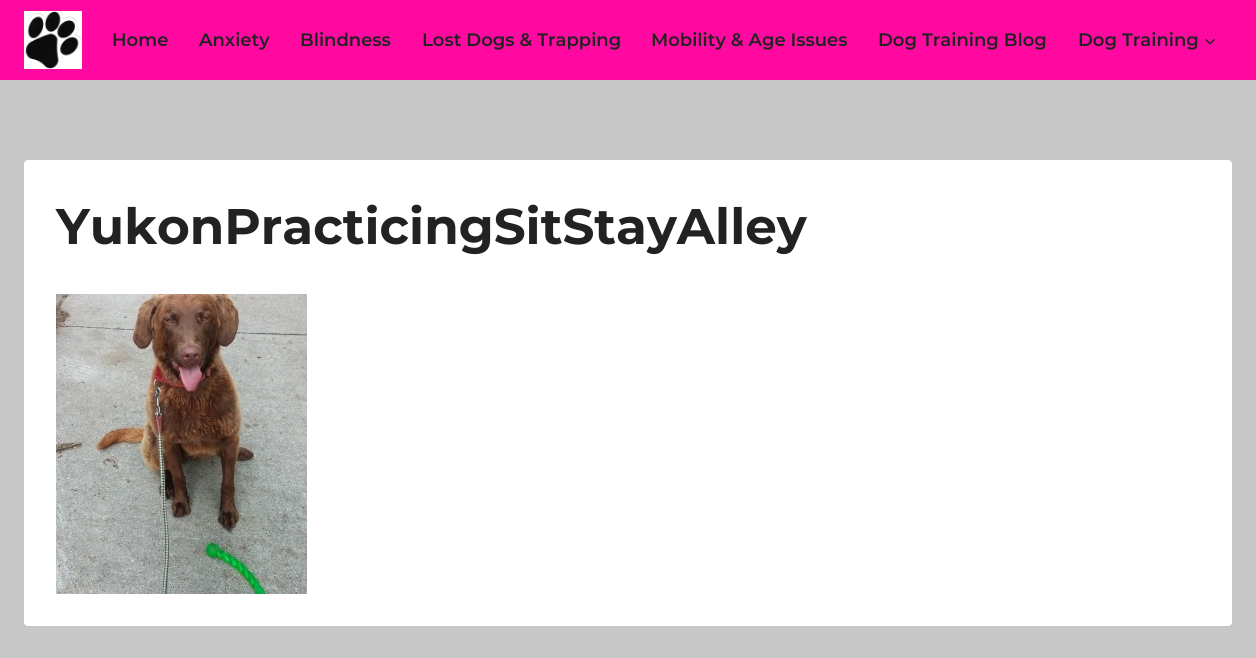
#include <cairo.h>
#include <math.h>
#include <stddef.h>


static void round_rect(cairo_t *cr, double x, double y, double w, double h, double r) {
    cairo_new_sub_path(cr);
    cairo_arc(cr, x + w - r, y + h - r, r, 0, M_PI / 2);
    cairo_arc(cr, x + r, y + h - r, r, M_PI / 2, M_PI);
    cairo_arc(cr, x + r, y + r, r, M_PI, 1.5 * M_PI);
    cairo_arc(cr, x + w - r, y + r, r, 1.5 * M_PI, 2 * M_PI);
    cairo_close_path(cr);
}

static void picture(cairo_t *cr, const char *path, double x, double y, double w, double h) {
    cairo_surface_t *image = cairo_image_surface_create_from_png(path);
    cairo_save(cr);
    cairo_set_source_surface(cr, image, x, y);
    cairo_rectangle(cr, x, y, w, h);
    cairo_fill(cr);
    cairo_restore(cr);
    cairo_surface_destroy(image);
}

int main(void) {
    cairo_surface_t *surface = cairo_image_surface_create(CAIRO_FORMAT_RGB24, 1256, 658);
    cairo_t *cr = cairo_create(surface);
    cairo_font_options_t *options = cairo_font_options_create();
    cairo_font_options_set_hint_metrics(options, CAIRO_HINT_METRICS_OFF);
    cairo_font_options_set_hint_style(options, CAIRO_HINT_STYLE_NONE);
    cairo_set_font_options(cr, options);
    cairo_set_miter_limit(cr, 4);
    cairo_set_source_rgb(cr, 0.784, 0.784, 0.784);
    cairo_paint(cr);
    cairo_set_source_rgb(cr, 1, 0.039, 0.631);
    cairo_rectangle(cr, 0, 0, 1256, 80);
    cairo_fill(cr);
    picture(cr, "img1.png", 24, 11, 58, 58);
    cairo_select_font_face(cr, "Montserrat SemiBold", CAIRO_FONT_SLANT_NORMAL, CAIRO_FONT_WEIGHT_NORMAL);
    cairo_set_font_size(cr, 18);
    cairo_set_source_rgb(cr, 0.133, 0.133, 0.133);
    cairo_move_to(cr, 112, 46);
    cairo_show_text(cr, "Home");
    cairo_move_to(cr, 199, 46);
    cairo_show_text(cr, "Anxiety");
    cairo_move_to(cr, 300, 46);
    cairo_show_text(cr, "Blindness");
    cairo_move_to(cr, 422, 46);
    cairo_show_text(cr, "Lost Dogs & Trapping");
    cairo_move_to(cr, 651, 46);
    cairo_show_text(cr, "Mobility & Age Issues");
    cairo_move_to(cr, 878, 46);
    cairo_show_text(cr, "Dog Training Blog");
    cairo_move_to(cr, 1078, 46);
    cairo_show_text(cr, "Dog Training");
    picture(cr, "img2.png", 1205, 39, 10, 6);
    cairo_set_source_rgb(cr, 1, 1, 1);
    round_rect(cr, 24, 160, 1208, 466, 4);
    cairo_fill(cr);
    cairo_select_font_face(cr, "Montserrat", CAIRO_FONT_SLANT_NORMAL, CAIRO_FONT_WEIGHT_BOLD);
    cairo_set_font_size(cr, 50);
    cairo_set_source_rgb(cr, 0.133, 0.133, 0.133);
    cairo_move_to(cr, 56, 244);
    cairo_show_text(cr, "YukonPracticingSitStayAlley");
    picture(cr, "img3.png", 56, 294, 251, 300);
    cairo_surface_write_to_png(surface, "page.png");
    cairo_font_options_destroy(options);
    cairo_destroy(cr);
    cairo_surface_destroy(surface);
    return 0;
}
